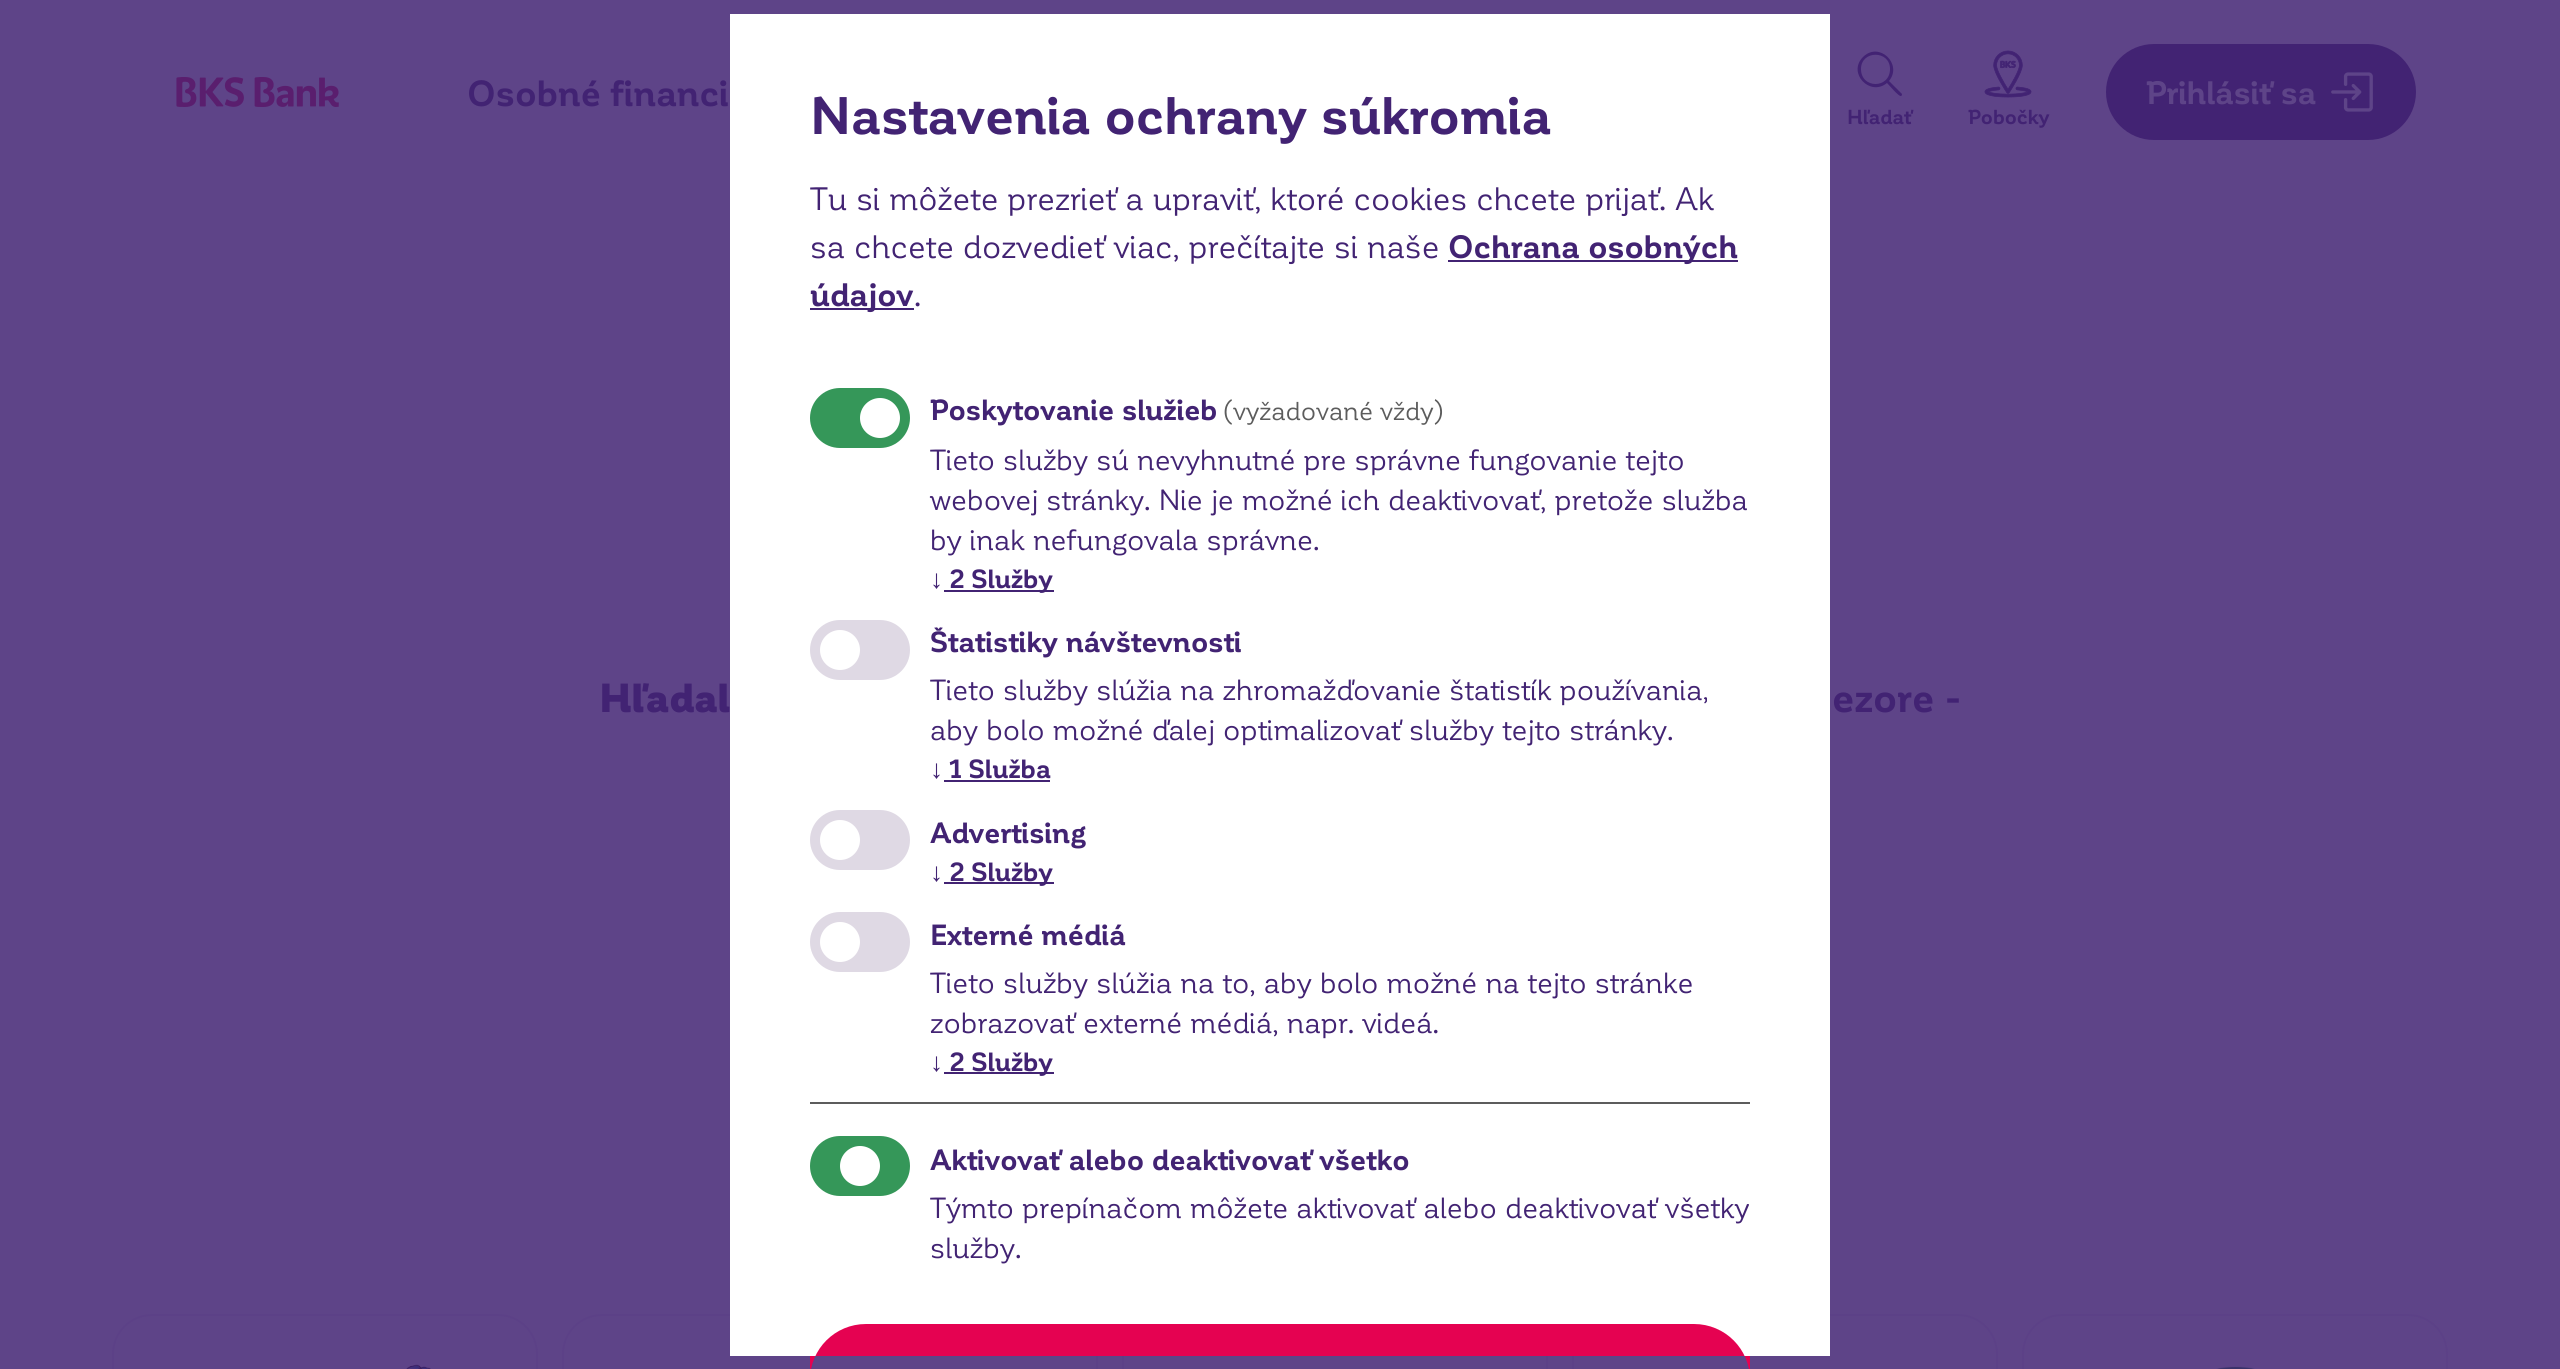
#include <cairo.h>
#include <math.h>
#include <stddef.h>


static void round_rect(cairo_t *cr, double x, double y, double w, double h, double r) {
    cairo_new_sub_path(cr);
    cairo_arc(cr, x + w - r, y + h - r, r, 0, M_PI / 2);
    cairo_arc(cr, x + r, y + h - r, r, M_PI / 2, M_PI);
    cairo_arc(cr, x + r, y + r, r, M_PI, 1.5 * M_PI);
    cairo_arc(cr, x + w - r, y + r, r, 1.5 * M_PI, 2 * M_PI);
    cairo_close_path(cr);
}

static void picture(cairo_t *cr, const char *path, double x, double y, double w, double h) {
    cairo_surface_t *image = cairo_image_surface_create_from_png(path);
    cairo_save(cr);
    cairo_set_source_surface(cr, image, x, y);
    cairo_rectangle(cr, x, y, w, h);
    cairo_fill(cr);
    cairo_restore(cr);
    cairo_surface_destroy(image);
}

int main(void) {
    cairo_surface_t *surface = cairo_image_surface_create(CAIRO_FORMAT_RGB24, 2560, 1369);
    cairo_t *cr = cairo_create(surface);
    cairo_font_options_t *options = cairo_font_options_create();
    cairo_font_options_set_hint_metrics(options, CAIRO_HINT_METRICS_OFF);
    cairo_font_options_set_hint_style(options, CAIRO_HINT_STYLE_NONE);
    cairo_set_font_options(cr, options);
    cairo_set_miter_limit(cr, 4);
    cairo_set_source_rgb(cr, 0.369, 0.267, 0.533);
    cairo_paint(cr);
    picture(cr, "img1.png", 176, 77, 163, 30);
    cairo_select_font_face(cr, "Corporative", CAIRO_FONT_SLANT_NORMAL, CAIRO_FONT_WEIGHT_BOLD);
    cairo_set_font_size(cr, 36);
    cairo_set_source_rgb(cr, 0.259, 0.137, 0.451);
    cairo_move_to(cr, 467, 106);
    cairo_show_text(cr, "Osobné financi");
    round_rect(cr, 2106, 44, 310, 96, 48);
    cairo_fill(cr);
    cairo_set_font_size(cr, 32);
    cairo_set_source_rgb(cr, 0.369, 0.267, 0.533);
    cairo_move_to(cr, 2146, 104);
    cairo_show_text(cr, "Prihlásiť sa");
    picture(cr, "img2.png", 2331, 72, 42, 40);
    cairo_set_source_rgb(cr, 0.259, 0.137, 0.451);
    cairo_new_path(cr);
    cairo_move_to(cr, 1902, 94);
    cairo_line_to(cr, 1889, 81);
    cairo_curve_to(cr, 1903, 64, 1879, 41, 1863, 57);
    cairo_curve_to(cr, 1847, 73, 1870, 97, 1887, 83);
    cairo_curve_to(cr, 1889, 85, 1899, 97, 1901, 96);
    cairo_curve_to(cr, 1902, 96, 1902, 94, 1902, 94);
    cairo_close_path(cr);
    cairo_move_to(cr, 1861, 69);
    cairo_curve_to(cr, 1861, 50, 1890, 50, 1890, 69);
    cairo_curve_to(cr, 1890, 89, 1861, 89, 1861, 69);
    cairo_close_path(cr);
    cairo_fill(cr);
    cairo_set_font_size(cr, 20);
    cairo_move_to(cr, 1847, 124);
    cairo_show_text(cr, "Hľadať");
    picture(cr, "img3.png", 1984, 50, 48, 48);
    cairo_move_to(cr, 1968, 124);
    cairo_show_text(cr, "Pobočky");
    cairo_select_font_face(cr, "Corporative Black", CAIRO_FONT_SLANT_NORMAL, CAIRO_FONT_WEIGHT_NORMAL);
    cairo_set_font_size(cr, 40);
    cairo_move_to(cr, 599, 712);
    cairo_show_text(cr, "Hľadal");
    cairo_select_font_face(cr, "Corporative", CAIRO_FONT_SLANT_NORMAL, CAIRO_FONT_WEIGHT_BOLD);
    cairo_move_to(cr, 1832, 712);
    cairo_show_text(cr, "ezore -");
    round_rect(cr, 113, 1315, 424, 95, 39);
    cairo_set_source_rgb(cr, 0.361, 0.255, 0.529);
    cairo_stroke(cr);
    picture(cr, "img4.png", 406, 1364, 25, 5);
    round_rect(cr, 563, 1315, 534, 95, 39);
    cairo_stroke(cr);
    cairo_rectangle(cr, 1123, 1315, 424, 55);
    cairo_stroke(cr);
    round_rect(cr, 1573, 1315, 424, 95, 39);
    cairo_stroke(cr);
    round_rect(cr, 2023, 1315, 424, 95, 39);
    cairo_stroke(cr);
    picture(cr, "img5.png", 2216, 1366, 41, 3);
    cairo_set_source_rgb(cr, 1, 1, 1);
    cairo_rectangle(cr, 730, 14, 1100, 1342);
    cairo_fill(cr);
    cairo_set_font_size(cr, 52);
    cairo_set_source_rgb(cr, 0.259, 0.137, 0.451);
    cairo_move_to(cr, 810, 134);
    cairo_show_text(cr, "Nastavenia ochrany súkromia");
    cairo_select_font_face(cr, "Corporative", CAIRO_FONT_SLANT_NORMAL, CAIRO_FONT_WEIGHT_NORMAL);
    cairo_set_font_size(cr, 32);
    cairo_move_to(cr, 810, 210);
    cairo_show_text(cr, "Tu si môžete prezrieť a upraviť, ktoré cookies chcete prijať. Ak");
    cairo_move_to(cr, 810, 258);
    cairo_show_text(cr, "sa chcete dozvedieť viac, prečítajte si naše");
    cairo_rectangle(cr, 1448, 260, 290, 2);
    cairo_fill(cr);
    cairo_select_font_face(cr, "Corporative", CAIRO_FONT_SLANT_NORMAL, CAIRO_FONT_WEIGHT_BOLD);
    cairo_move_to(cr, 1448, 258);
    cairo_show_text(cr, "Ochrana osobných");
    cairo_rectangle(cr, 810, 308, 104, 2);
    cairo_fill(cr);
    cairo_move_to(cr, 810, 306);
    cairo_show_text(cr, "údajov");
    cairo_select_font_face(cr, "Corporative", CAIRO_FONT_SLANT_NORMAL, CAIRO_FONT_WEIGHT_NORMAL);
    cairo_move_to(cr, 914, 306);
    cairo_show_text(cr, ".");
    cairo_set_source_rgb(cr, 0.208, 0.592, 0.349);
    round_rect(cr, 810, 388, 100, 60, 30);
    cairo_fill(cr);
    cairo_set_source_rgb(cr, 1, 1, 1);
    cairo_arc(cr, 880, 418, 20, 0, 2 * M_PI);
    cairo_fill(cr);
    cairo_select_font_face(cr, "Corporative", CAIRO_FONT_SLANT_NORMAL, CAIRO_FONT_WEIGHT_BOLD);
    cairo_set_font_size(cr, 28.8);
    cairo_set_source_rgb(cr, 0.259, 0.137, 0.451);
    cairo_move_to(cr, 930, 420);
    cairo_show_text(cr, "Poskytovanie služieb");
    cairo_select_font_face(cr, "Corporative", CAIRO_FONT_SLANT_NORMAL, CAIRO_FONT_WEIGHT_NORMAL);
    cairo_set_font_size(cr, 25.5);
    cairo_set_source_rgb(cr, 0.361, 0.361, 0.361);
    cairo_move_to(cr, 1222, 420);
    cairo_show_text(cr, "(vyžadované vždy)");
    cairo_set_font_size(cr, 28.8);
    cairo_set_source_rgb(cr, 0.259, 0.137, 0.451);
    cairo_move_to(cr, 930, 470);
    cairo_show_text(cr, "Tieto služby sú nevyhnutné pre správne fungovanie tejto");
    cairo_move_to(cr, 930, 510);
    cairo_show_text(cr, "webovej stránky. Nie je možné ich deaktivovať, pretože služba");
    cairo_move_to(cr, 930, 550);
    cairo_show_text(cr, "by inak nefungovala správne.");
    cairo_select_font_face(cr, "Liberation Sans", CAIRO_FONT_SLANT_NORMAL, CAIRO_FONT_WEIGHT_BOLD);
    cairo_set_font_size(cr, 26);
    cairo_move_to(cr, 930, 588);
    cairo_show_text(cr, "↓");
    cairo_rectangle(cr, 944, 590, 110, 2);
    cairo_fill(cr);
    cairo_select_font_face(cr, "Corporative", CAIRO_FONT_SLANT_NORMAL, CAIRO_FONT_WEIGHT_BOLD);
    cairo_move_to(cr, 950, 588);
    cairo_show_text(cr, "2 Služby");
    cairo_set_source_rgb(cr, 0.875, 0.851, 0.894);
    round_rect(cr, 810, 620, 100, 60, 30);
    cairo_fill(cr);
    cairo_set_source_rgb(cr, 1, 1, 1);
    cairo_arc(cr, 840, 650, 20, 0, 2 * M_PI);
    cairo_fill(cr);
    cairo_set_font_size(cr, 28.8);
    cairo_set_source_rgb(cr, 0.259, 0.137, 0.451);
    cairo_move_to(cr, 930, 652);
    cairo_show_text(cr, "Štatistiky návštevnosti");
    cairo_select_font_face(cr, "Corporative", CAIRO_FONT_SLANT_NORMAL, CAIRO_FONT_WEIGHT_NORMAL);
    cairo_move_to(cr, 930, 700);
    cairo_show_text(cr, "Tieto služby slúžia na zhromažďovanie štatistík používania,");
    cairo_move_to(cr, 930, 740);
    cairo_show_text(cr, "aby bolo možné ďalej optimalizovať služby tejto stránky.");
    cairo_select_font_face(cr, "Liberation Sans", CAIRO_FONT_SLANT_NORMAL, CAIRO_FONT_WEIGHT_BOLD);
    cairo_set_font_size(cr, 26);
    cairo_move_to(cr, 930, 778);
    cairo_show_text(cr, "↓");
    cairo_select_font_face(cr, "Corporative", CAIRO_FONT_SLANT_NORMAL, CAIRO_FONT_WEIGHT_BOLD);
    cairo_move_to(cr, 950, 778);
    cairo_show_text(cr, "1 Služba");
    cairo_rectangle(cr, 944, 780, 106, 2);
    cairo_fill(cr);
    cairo_set_source_rgb(cr, 0.875, 0.851, 0.894);
    round_rect(cr, 810, 810, 100, 60, 30);
    cairo_fill(cr);
    cairo_set_source_rgb(cr, 1, 1, 1);
    cairo_arc(cr, 840, 840, 20, 0, 2 * M_PI);
    cairo_fill(cr);
    cairo_set_font_size(cr, 28.8);
    cairo_set_source_rgb(cr, 0.259, 0.137, 0.451);
    cairo_move_to(cr, 930, 843);
    cairo_show_text(cr, "Advertising");
    cairo_select_font_face(cr, "Liberation Sans", CAIRO_FONT_SLANT_NORMAL, CAIRO_FONT_WEIGHT_BOLD);
    cairo_set_font_size(cr, 26);
    cairo_move_to(cr, 930, 881);
    cairo_show_text(cr, "↓");
    cairo_rectangle(cr, 944, 882, 110, 2);
    cairo_fill(cr);
    cairo_select_font_face(cr, "Corporative", CAIRO_FONT_SLANT_NORMAL, CAIRO_FONT_WEIGHT_BOLD);
    cairo_move_to(cr, 950, 881);
    cairo_show_text(cr, "2 Služby");
    cairo_set_source_rgb(cr, 0.875, 0.851, 0.894);
    round_rect(cr, 810, 912, 100, 60, 30);
    cairo_fill(cr);
    cairo_set_source_rgb(cr, 1, 1, 1);
    cairo_arc(cr, 840, 942, 20, 0, 2 * M_PI);
    cairo_fill(cr);
    cairo_set_font_size(cr, 28.8);
    cairo_set_source_rgb(cr, 0.259, 0.137, 0.451);
    cairo_move_to(cr, 930, 945);
    cairo_show_text(cr, "Externé médiá");
    cairo_select_font_face(cr, "Corporative", CAIRO_FONT_SLANT_NORMAL, CAIRO_FONT_WEIGHT_NORMAL);
    cairo_move_to(cr, 930, 993);
    cairo_show_text(cr, "Tieto služby slúžia na to, aby bolo možné na tejto stránke");
    cairo_move_to(cr, 930, 1033);
    cairo_show_text(cr, "zobrazovať externé médiá, napr. videá.");
    cairo_select_font_face(cr, "Liberation Sans", CAIRO_FONT_SLANT_NORMAL, CAIRO_FONT_WEIGHT_BOLD);
    cairo_set_font_size(cr, 26);
    cairo_move_to(cr, 930, 1071);
    cairo_show_text(cr, "↓");
    cairo_rectangle(cr, 944, 1072, 110, 2);
    cairo_fill(cr);
    cairo_select_font_face(cr, "Corporative", CAIRO_FONT_SLANT_NORMAL, CAIRO_FONT_WEIGHT_BOLD);
    cairo_move_to(cr, 950, 1071);
    cairo_show_text(cr, "2 Služby");
    cairo_set_source_rgb(cr, 0.361, 0.361, 0.361);
    cairo_rectangle(cr, 810, 1102, 940, 2);
    cairo_fill(cr);
    cairo_set_source_rgb(cr, 0.208, 0.592, 0.349);
    round_rect(cr, 810, 1136, 100, 60, 30);
    cairo_fill(cr);
    cairo_set_source_rgb(cr, 1, 1, 1);
    cairo_arc(cr, 860, 1166, 20, 0, 2 * M_PI);
    cairo_fill(cr);
    cairo_set_font_size(cr, 28.8);
    cairo_set_source_rgb(cr, 0.259, 0.137, 0.451);
    cairo_move_to(cr, 930, 1170);
    cairo_show_text(cr, "Aktivovať alebo deaktivovať všetko");
    cairo_select_font_face(cr, "Corporative", CAIRO_FONT_SLANT_NORMAL, CAIRO_FONT_WEIGHT_NORMAL);
    cairo_move_to(cr, 930, 1218);
    cairo_show_text(cr, "Týmto prepínačom môžete aktivovať alebo deaktivovať všetky");
    cairo_move_to(cr, 930, 1258);
    cairo_show_text(cr, "služby.");
    cairo_set_source_rgb(cr, 0.898, 0.008, 0.318);
    cairo_new_path(cr);
    cairo_move_to(cr, 866, 1324);
    cairo_line_to(cr, 1694, 1324);
    cairo_curve_to(cr, 1725, 1324, 1750, 1349, 1750, 1380);
    cairo_line_to(cr, 1750, 1356);
    cairo_line_to(cr, 810, 1356);
    cairo_line_to(cr, 810, 1380);
    cairo_curve_to(cr, 810, 1349, 835, 1324, 866, 1324);
    cairo_close_path(cr);
    cairo_fill(cr);
    cairo_surface_write_to_png(surface, "page.png");
    cairo_font_options_destroy(options);
    cairo_destroy(cr);
    cairo_surface_destroy(surface);
    return 0;
}
